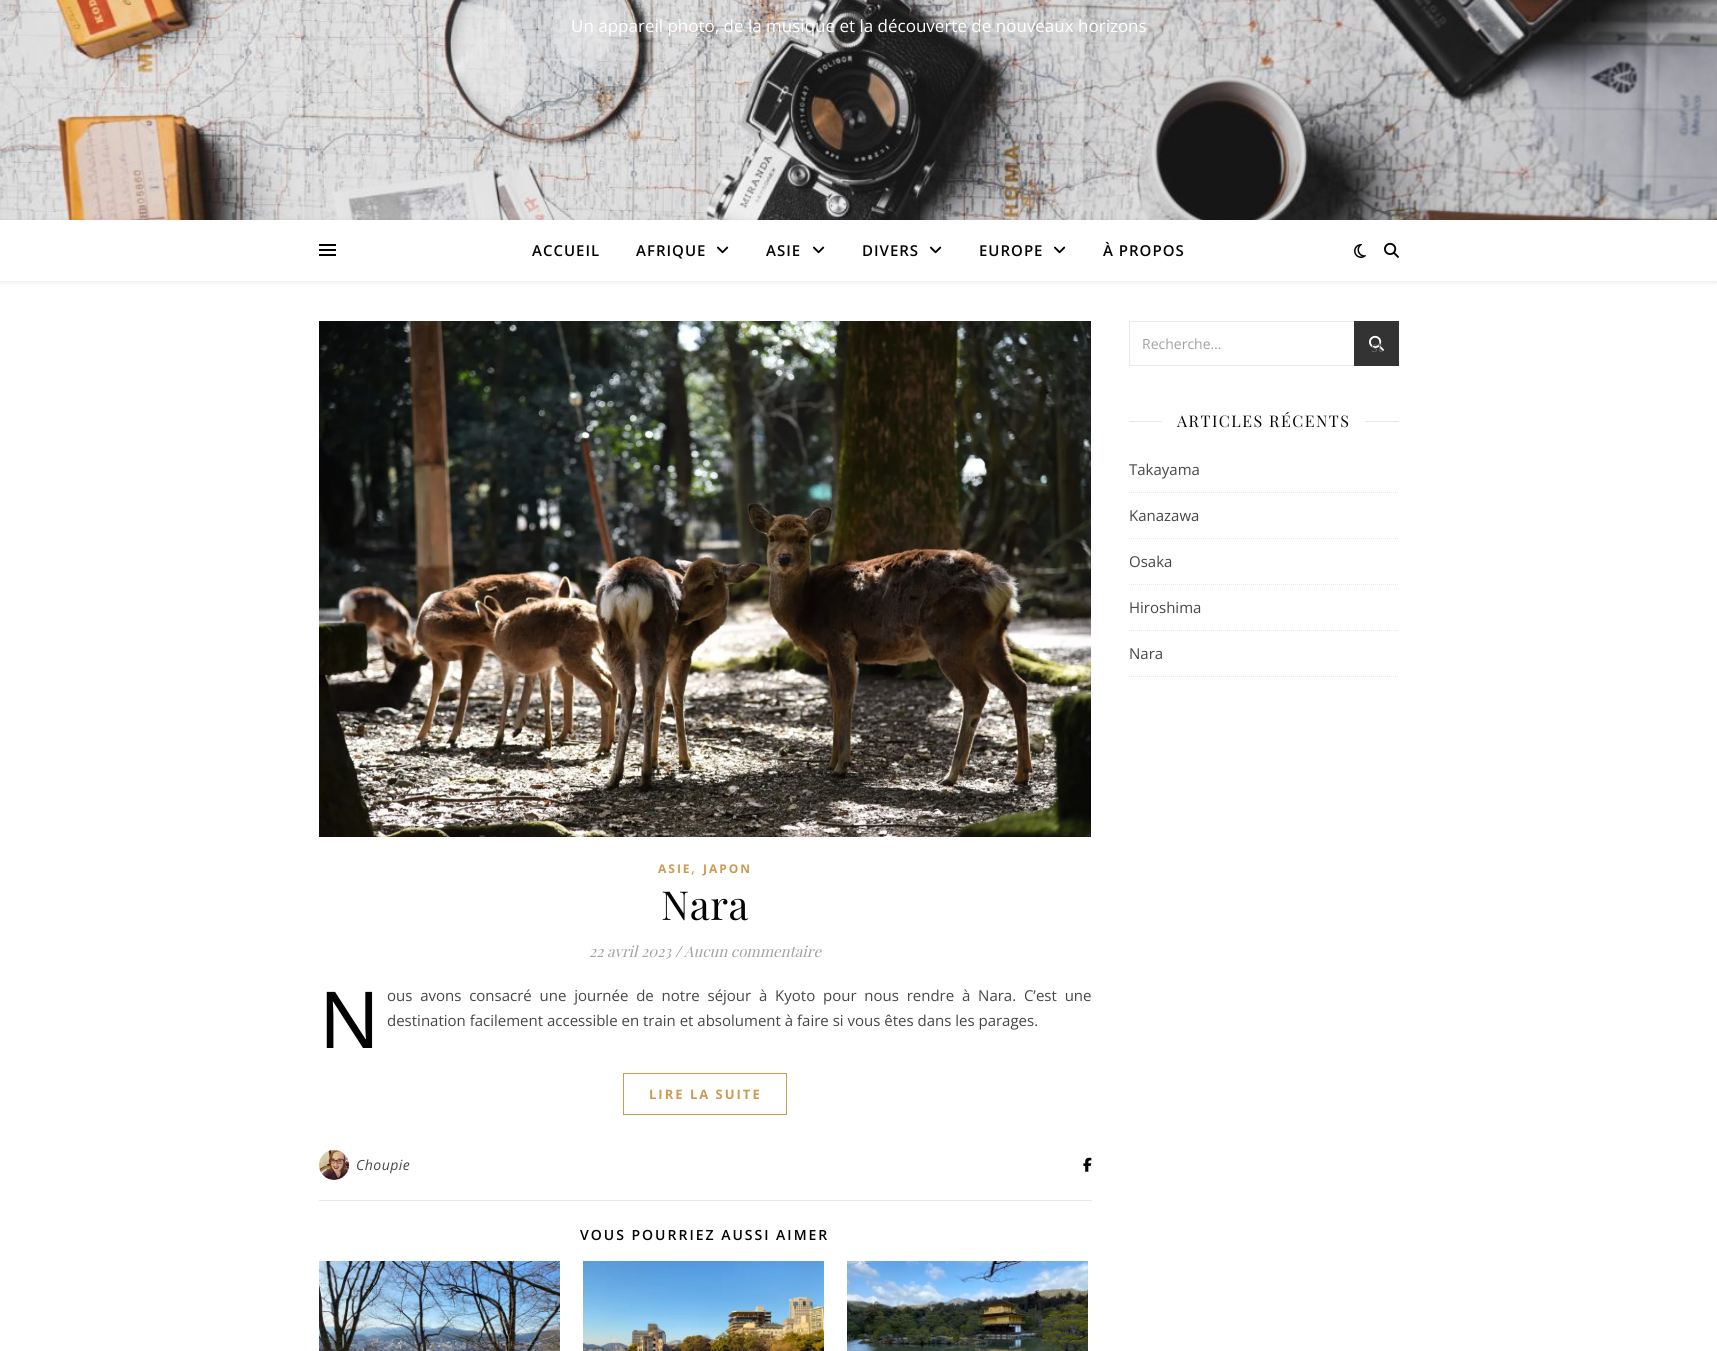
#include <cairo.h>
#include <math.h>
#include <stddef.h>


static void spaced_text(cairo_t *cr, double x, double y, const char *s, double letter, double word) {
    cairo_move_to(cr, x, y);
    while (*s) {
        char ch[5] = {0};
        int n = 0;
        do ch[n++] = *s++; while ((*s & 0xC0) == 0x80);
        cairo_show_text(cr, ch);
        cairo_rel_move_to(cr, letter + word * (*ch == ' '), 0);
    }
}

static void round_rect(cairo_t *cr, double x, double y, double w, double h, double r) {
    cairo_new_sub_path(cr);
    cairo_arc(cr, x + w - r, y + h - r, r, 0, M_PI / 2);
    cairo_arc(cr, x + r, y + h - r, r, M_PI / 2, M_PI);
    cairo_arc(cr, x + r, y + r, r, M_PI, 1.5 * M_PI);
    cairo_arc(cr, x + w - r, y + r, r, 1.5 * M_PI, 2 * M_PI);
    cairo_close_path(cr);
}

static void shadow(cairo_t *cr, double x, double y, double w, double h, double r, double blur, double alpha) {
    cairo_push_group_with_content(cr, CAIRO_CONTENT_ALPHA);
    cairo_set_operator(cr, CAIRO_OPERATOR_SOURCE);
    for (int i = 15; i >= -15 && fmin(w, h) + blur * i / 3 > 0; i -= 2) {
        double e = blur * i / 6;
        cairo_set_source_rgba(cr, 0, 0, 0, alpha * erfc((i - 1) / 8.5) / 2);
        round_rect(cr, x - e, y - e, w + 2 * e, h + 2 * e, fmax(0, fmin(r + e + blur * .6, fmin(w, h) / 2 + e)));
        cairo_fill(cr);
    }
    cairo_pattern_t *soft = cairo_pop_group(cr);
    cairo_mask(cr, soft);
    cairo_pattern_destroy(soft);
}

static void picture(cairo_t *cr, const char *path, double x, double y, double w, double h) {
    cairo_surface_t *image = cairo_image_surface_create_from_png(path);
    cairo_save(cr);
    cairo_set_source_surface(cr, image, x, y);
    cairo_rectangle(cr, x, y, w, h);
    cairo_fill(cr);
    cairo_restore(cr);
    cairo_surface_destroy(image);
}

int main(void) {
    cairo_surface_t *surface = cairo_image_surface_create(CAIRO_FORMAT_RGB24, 1717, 1351);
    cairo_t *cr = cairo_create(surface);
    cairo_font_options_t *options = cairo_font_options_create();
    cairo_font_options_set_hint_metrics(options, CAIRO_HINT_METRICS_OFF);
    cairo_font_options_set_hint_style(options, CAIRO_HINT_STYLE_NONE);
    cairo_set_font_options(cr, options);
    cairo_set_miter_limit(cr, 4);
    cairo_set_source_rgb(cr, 1, 1, 1);
    cairo_paint(cr);
    picture(cr, "img1.png", 0, 0, 1717, 220);
    cairo_select_font_face(cr, "Open Sans", CAIRO_FONT_SLANT_NORMAL, CAIRO_FONT_WEIGHT_NORMAL);
    cairo_set_font_size(cr, 17);
    cairo_set_source_rgb(cr, 1, 1, 1);
    cairo_move_to(cr, 571, 32);
    cairo_show_text(cr, "Un appareil photo, de la musique et la découverte de nouveaux horizons");
    cairo_save(cr);
    cairo_set_fill_rule(cr, CAIRO_FILL_RULE_EVEN_ODD);
    cairo_new_path(cr);
    cairo_move_to(cr, 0, 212);
    cairo_line_to(cr, 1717, 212);
    cairo_line_to(cr, 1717, 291);
    cairo_line_to(cr, 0, 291);
    cairo_close_path(cr);
    cairo_move_to(cr, 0, 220);
    cairo_line_to(cr, 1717, 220);
    cairo_line_to(cr, 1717, 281);
    cairo_line_to(cr, 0, 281);
    cairo_close_path(cr);
    cairo_clip(cr);
    cairo_set_source_rgb(cr, 0, 0, 0);
    shadow(cr, 0, 221, 1717, 61, 0, 2.5, 0.1);
    cairo_restore(cr);
    cairo_set_source_rgb(cr, 0, 0, 0);
    cairo_rectangle(cr, 319, 244, 17, 2);
    cairo_fill(cr);
    cairo_rectangle(cr, 319, 249, 17, 2);
    cairo_fill(cr);
    cairo_rectangle(cr, 319, 254, 17, 2);
    cairo_fill(cr);
    cairo_select_font_face(cr, "Open Sans SemiBold", CAIRO_FONT_SLANT_NORMAL, CAIRO_FONT_WEIGHT_NORMAL);
    cairo_set_font_size(cr, 15);
    cairo_set_source_rgb(cr, 0.012, 0.012, 0.012);
    spaced_text(cr, 532, 256, "ACCUEIL", 1, 0);
    spaced_text(cr, 636, 256, "AFRIQUE", 1, 0);
    picture(cr, "img2.png", 717, 246, 12, 8);
    spaced_text(cr, 766, 256, "ASIE", 1, 0);
    picture(cr, "img2.png", 813, 246, 12, 8);
    spaced_text(cr, 862, 256, "DIVERS", 1, 0);
    picture(cr, "img2.png", 930, 246, 12, 8);
    spaced_text(cr, 979, 256, "EUROPE", 1, 0);
    picture(cr, "img2.png", 1054, 246, 12, 8);
    spaced_text(cr, 1103, 256, "À PROPOS", 1, 0);
    picture(cr, "img3.png", 1354, 244, 12, 14);
    picture(cr, "img4.png", 1384, 242, 15, 16);
    cairo_rectangle(cr, 1129.5, 321.5, 269, 44);
    cairo_set_source_rgb(cr, 0.91, 0.91, 0.91);
    cairo_set_line_width(cr, 1);
    cairo_stroke(cr);
    cairo_select_font_face(cr, "Open Sans", CAIRO_FONT_SLANT_NORMAL, CAIRO_FONT_WEIGHT_NORMAL);
    cairo_set_font_size(cr, 14);
    cairo_set_source_rgb(cr, 0.631, 0.631, 0.631);
    cairo_move_to(cr, 1142, 349);
    cairo_show_text(cr, "Recherche…");
    cairo_set_source_rgb(cr, 0.2, 0.2, 0.2);
    cairo_rectangle(cr, 1354, 321, 45, 45);
    cairo_fill(cr);
    picture(cr, "img5.png", 1369, 335, 15, 16);
    cairo_set_source_rgb(cr, 0.388, 0.388, 0.388);
    cairo_move_to(cr, 1371, 352);
    cairo_show_text(cr, "st");
    cairo_set_source_rgb(cr, 0.91, 0.91, 0.91);
    cairo_rectangle(cr, 1129, 421, 33, 1);
    cairo_fill(cr);
    cairo_select_font_face(cr, "Playfair Display", CAIRO_FONT_SLANT_NORMAL, CAIRO_FONT_WEIGHT_NORMAL);
    cairo_set_font_size(cr, 16);
    cairo_set_source_rgb(cr, 0.012, 0.012, 0.012);
    spaced_text(cr, 1177, 427, "ARTICLES RÉCENTS", 1.5, 0);
    cairo_set_source_rgb(cr, 0.91, 0.91, 0.91);
    cairo_rectangle(cr, 1365, 421, 34, 1);
    cairo_fill(cr);
    cairo_new_path(cr);
    cairo_move_to(cr, 1129, 492.5);
    cairo_line_to(cr, 1399, 492.5);
    cairo_set_dash(cr, (double[]){1, 1}, 2, 0);
    cairo_stroke(cr);
    cairo_select_font_face(cr, "Open Sans", CAIRO_FONT_SLANT_NORMAL, CAIRO_FONT_WEIGHT_NORMAL);
    cairo_set_font_size(cr, 15);
    cairo_set_source_rgb(cr, 0.275, 0.275, 0.275);
    cairo_move_to(cr, 1129, 475);
    cairo_show_text(cr, "Takayama");
    cairo_new_path(cr);
    cairo_move_to(cr, 1129, 538.5);
    cairo_line_to(cr, 1399, 538.5);
    cairo_set_source_rgb(cr, 0.91, 0.91, 0.91);
    cairo_stroke(cr);
    cairo_set_source_rgb(cr, 0.275, 0.275, 0.275);
    cairo_move_to(cr, 1129, 521);
    cairo_show_text(cr, "Kanazawa");
    cairo_new_path(cr);
    cairo_move_to(cr, 1129, 584.5);
    cairo_line_to(cr, 1399, 584.5);
    cairo_set_source_rgb(cr, 0.91, 0.91, 0.91);
    cairo_stroke(cr);
    cairo_set_source_rgb(cr, 0.275, 0.275, 0.275);
    cairo_move_to(cr, 1129, 567);
    cairo_show_text(cr, "Osaka");
    cairo_new_path(cr);
    cairo_move_to(cr, 1129, 630.5);
    cairo_line_to(cr, 1399, 630.5);
    cairo_set_source_rgb(cr, 0.91, 0.91, 0.91);
    cairo_stroke(cr);
    cairo_set_source_rgb(cr, 0.275, 0.275, 0.275);
    cairo_move_to(cr, 1129, 613);
    cairo_show_text(cr, "Hiroshima");
    cairo_new_path(cr);
    cairo_move_to(cr, 1129, 676.5);
    cairo_line_to(cr, 1399, 676.5);
    cairo_set_source_rgb(cr, 0.91, 0.91, 0.91);
    cairo_stroke(cr);
    cairo_set_source_rgb(cr, 0.275, 0.275, 0.275);
    cairo_move_to(cr, 1129, 659);
    cairo_show_text(cr, "Nara");
    picture(cr, "img6.png", 319, 321, 772, 516);
    cairo_select_font_face(cr, "Open Sans", CAIRO_FONT_SLANT_NORMAL, CAIRO_FONT_WEIGHT_BOLD);
    cairo_set_font_size(cr, 12);
    cairo_set_source_rgb(cr, 0.792, 0.608, 0.322);
    spaced_text(cr, 658, 873, "ASIE", 2, 0);
    cairo_select_font_face(cr, "Open Sans", CAIRO_FONT_SLANT_NORMAL, CAIRO_FONT_WEIGHT_NORMAL);
    cairo_set_font_size(cr, 15);
    cairo_move_to(cr, 691, 873);
    cairo_show_text(cr, ",");
    cairo_select_font_face(cr, "Open Sans", CAIRO_FONT_SLANT_NORMAL, CAIRO_FONT_WEIGHT_BOLD);
    cairo_set_font_size(cr, 12);
    spaced_text(cr, 703, 873, "JAPON", 2, 0);
    cairo_select_font_face(cr, "Playfair Display", CAIRO_FONT_SLANT_NORMAL, CAIRO_FONT_WEIGHT_NORMAL);
    cairo_set_font_size(cr, 40);
    cairo_set_source_rgb(cr, 0.012, 0.012, 0.012);
    spaced_text(cr, 661, 920, "Nara", 0.5, 0);
    cairo_select_font_face(cr, "Playfair Display", CAIRO_FONT_SLANT_ITALIC, CAIRO_FONT_WEIGHT_NORMAL);
    cairo_set_font_size(cr, 15);
    cairo_set_source_rgb(cr, 0.631, 0.631, 0.631);
    cairo_move_to(cr, 589, 957);
    cairo_show_text(cr, "22 avril 2023");
    cairo_set_source_rgb(cr, 0.275, 0.275, 0.275);
    cairo_move_to(cr, 675, 957);
    cairo_show_text(cr, "/");
    cairo_set_source_rgb(cr, 0.631, 0.631, 0.631);
    cairo_move_to(cr, 684, 957);
    cairo_show_text(cr, "Aucun commentaire");
    cairo_save(cr);
    cairo_rectangle(cr, 319, 983, 773, 65);
    cairo_clip(cr);
    cairo_select_font_face(cr, "Noto Sans", CAIRO_FONT_SLANT_NORMAL, CAIRO_FONT_WEIGHT_NORMAL);
    cairo_set_font_size(cr, 80);
    cairo_set_source_rgb(cr, 0.012, 0.012, 0.012);
    cairo_move_to(cr, 319, 1049);
    cairo_show_text(cr, "N");
    cairo_restore(cr);
    cairo_select_font_face(cr, "Open Sans", CAIRO_FONT_SLANT_NORMAL, CAIRO_FONT_WEIGHT_NORMAL);
    cairo_set_source_rgb(cr, 0.275, 0.275, 0.275);
    spaced_text(cr, 387, 1001, "ous avons consacré une journée de notre séjour à Kyoto pour nous rendre à Nara. C’est une", 0, 3.9);
    cairo_move_to(cr, 387, 1026);
    cairo_show_text(cr, "destination facilement accessible en train et absolument à faire si vous êtes dans les parages.");
    cairo_rectangle(cr, 623.5, 1073.5, 163, 41);
    cairo_set_source_rgb(cr, 0.792, 0.608, 0.322);
    cairo_set_dash(cr, NULL, 0, 0);
    cairo_stroke(cr);
    cairo_select_font_face(cr, "Open Sans", CAIRO_FONT_SLANT_NORMAL, CAIRO_FONT_WEIGHT_BOLD);
    cairo_set_font_size(cr, 13);
    spaced_text(cr, 649, 1099, "LIRE LA SUITE", 2, 0);
    cairo_set_source_rgb(cr, 0.91, 0.91, 0.91);
    cairo_rectangle(cr, 319, 1200, 773, 1);
    cairo_fill(cr);
    picture(cr, "img7.png", 319, 1150, 30, 30);
    cairo_select_font_face(cr, "Open Sans", CAIRO_FONT_SLANT_ITALIC, CAIRO_FONT_WEIGHT_NORMAL);
    cairo_set_font_size(cr, 14);
    cairo_set_source_rgb(cr, 0.275, 0.275, 0.275);
    spaced_text(cr, 356, 1170, "Choupie", 0.5, 0);
    picture(cr, "img8.png", 1083, 1157, 9, 15);
    cairo_select_font_face(cr, "Open Sans SemiBold", CAIRO_FONT_SLANT_NORMAL, CAIRO_FONT_WEIGHT_NORMAL);
    cairo_set_source_rgb(cr, 0.012, 0.012, 0.012);
    spaced_text(cr, 580, 1240, "VOUS POURRIEZ AUSSI AIMER", 2, 0);
    picture(cr, "img9.png", 319, 1261, 241, 90);
    picture(cr, "img10.png", 583, 1261, 241, 90);
    picture(cr, "img11.png", 847, 1261, 241, 90);
    cairo_surface_write_to_png(surface, "page.png");
    cairo_font_options_destroy(options);
    cairo_destroy(cr);
    cairo_surface_destroy(surface);
    return 0;
}
